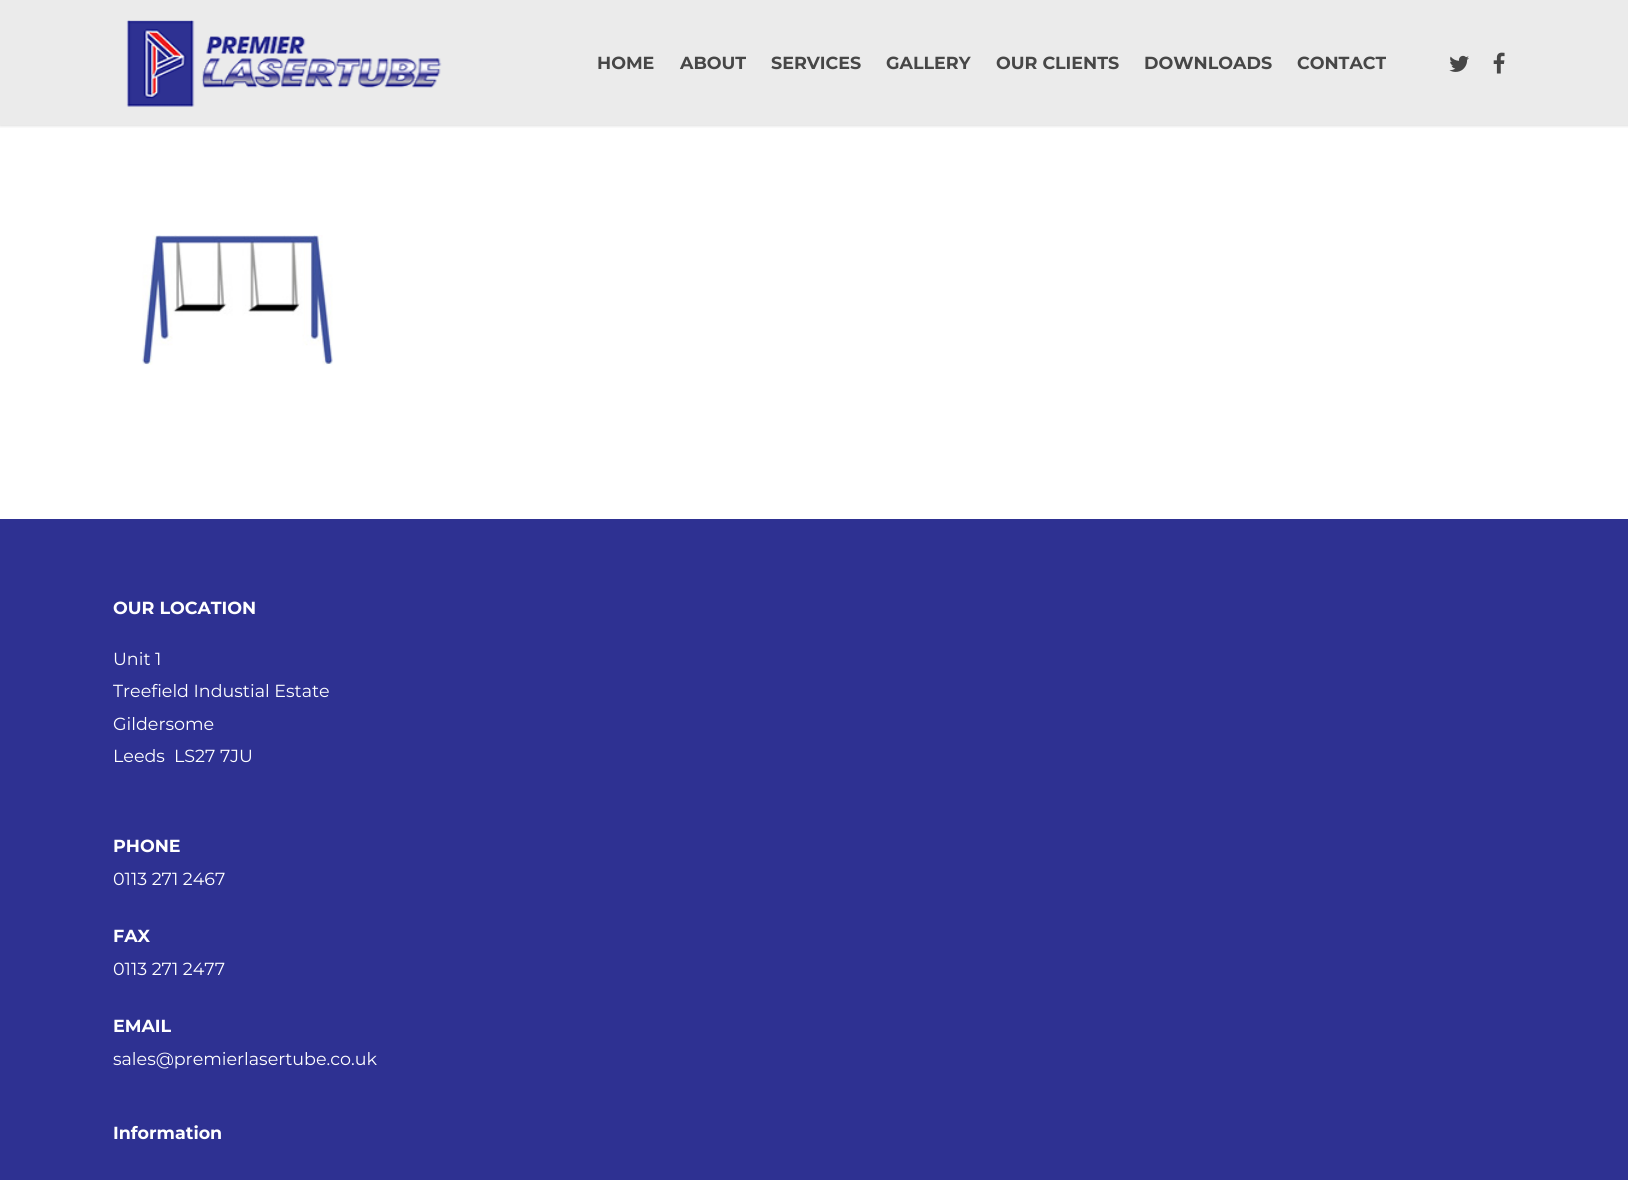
#include <cairo.h>
#include <math.h>
#include <stddef.h>


static void round_rect(cairo_t *cr, double x, double y, double w, double h, double r) {
    cairo_new_sub_path(cr);
    cairo_arc(cr, x + w - r, y + h - r, r, 0, M_PI / 2);
    cairo_arc(cr, x + r, y + h - r, r, M_PI / 2, M_PI);
    cairo_arc(cr, x + r, y + r, r, M_PI, 1.5 * M_PI);
    cairo_arc(cr, x + w - r, y + r, r, 1.5 * M_PI, 2 * M_PI);
    cairo_close_path(cr);
}

static void shadow(cairo_t *cr, double x, double y, double w, double h, double r, double blur, double alpha) {
    cairo_push_group_with_content(cr, CAIRO_CONTENT_ALPHA);
    cairo_set_operator(cr, CAIRO_OPERATOR_SOURCE);
    for (int i = 15; i >= -15 && fmin(w, h) + blur * i / 3 > 0; i -= 2) {
        double e = blur * i / 6;
        cairo_set_source_rgba(cr, 0, 0, 0, alpha * erfc((i - 1) / 8.5) / 2);
        round_rect(cr, x - e, y - e, w + 2 * e, h + 2 * e, fmax(0, fmin(r + e + blur * .6, fmin(w, h) / 2 + e)));
        cairo_fill(cr);
    }
    cairo_pattern_t *soft = cairo_pop_group(cr);
    cairo_mask(cr, soft);
    cairo_pattern_destroy(soft);
}

static void picture(cairo_t *cr, const char *path, double x, double y, double w, double h) {
    cairo_surface_t *image = cairo_image_surface_create_from_png(path);
    cairo_save(cr);
    cairo_set_source_surface(cr, image, x, y);
    cairo_rectangle(cr, x, y, w, h);
    cairo_fill(cr);
    cairo_restore(cr);
    cairo_surface_destroy(image);
}

int main(void) {
    cairo_surface_t *surface = cairo_image_surface_create(CAIRO_FORMAT_RGB24, 1628, 1180);
    cairo_t *cr = cairo_create(surface);
    cairo_font_options_t *options = cairo_font_options_create();
    cairo_font_options_set_hint_metrics(options, CAIRO_HINT_METRICS_OFF);
    cairo_font_options_set_hint_style(options, CAIRO_HINT_STYLE_NONE);
    cairo_set_font_options(cr, options);
    cairo_set_miter_limit(cr, 4);
    cairo_set_source_rgb(cr, 1, 1, 1);
    cairo_paint(cr);
    cairo_set_source_rgb(cr, 0.918, 0.918, 0.918);
    cairo_rectangle(cr, 0, 0, 1628, 125);
    cairo_fill(cr);
    cairo_save(cr);
    cairo_rectangle(cr, 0, 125, 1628, 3);
    cairo_clip(cr);
    cairo_set_source_rgb(cr, 0, 0, 0);
    shadow(cr, 0, 0, 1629, 125, 0, 2, 0.22);
    cairo_restore(cr);
    picture(cr, "img1.png", 126, 20, 316, 87);
    cairo_select_font_face(cr, "Montserrat", CAIRO_FONT_SLANT_NORMAL, CAIRO_FONT_WEIGHT_BOLD);
    cairo_set_font_size(cr, 17.5);
    cairo_set_source_rgb(cr, 0.278, 0.278, 0.278);
    cairo_move_to(cr, 597, 69);
    cairo_show_text(cr, "HOME");
    cairo_move_to(cr, 680, 69);
    cairo_show_text(cr, "ABOUT");
    cairo_move_to(cr, 771, 69);
    cairo_show_text(cr, "SERVICES");
    cairo_move_to(cr, 886, 69);
    cairo_show_text(cr, "GALLERY");
    cairo_move_to(cr, 996, 69);
    cairo_show_text(cr, "OUR CLIENTS");
    cairo_move_to(cr, 1144, 69);
    cairo_show_text(cr, "DOWNLOADS");
    cairo_move_to(cr, 1297, 69);
    cairo_show_text(cr, "CONTACT");
    picture(cr, "img2.png", 1449, 55, 20, 17);
    picture(cr, "img3.png", 1493, 52, 12, 22);
    picture(cr, "img4.png", 142, 235, 191, 130);
    cairo_set_source_rgb(cr, 0.18, 0.192, 0.573);
    cairo_rectangle(cr, 0, 519, 1628, 661);
    cairo_fill(cr);
    cairo_set_source_rgb(cr, 1, 1, 1);
    cairo_move_to(cr, 113, 614);
    cairo_show_text(cr, "OUR LOCATION");
    cairo_select_font_face(cr, "Montserrat", CAIRO_FONT_SLANT_NORMAL, CAIRO_FONT_WEIGHT_NORMAL);
    cairo_move_to(cr, 113, 665);
    cairo_show_text(cr, "Unit 1");
    cairo_move_to(cr, 113, 697);
    cairo_show_text(cr, "Treefield Industial Estate");
    cairo_move_to(cr, 113, 730);
    cairo_show_text(cr, "Gildersome");
    cairo_move_to(cr, 113, 762);
    cairo_show_text(cr, "Leeds  LS27 7JU");
    cairo_select_font_face(cr, "Montserrat", CAIRO_FONT_SLANT_NORMAL, CAIRO_FONT_WEIGHT_BOLD);
    cairo_move_to(cr, 113, 852);
    cairo_show_text(cr, "PHONE");
    cairo_select_font_face(cr, "Montserrat", CAIRO_FONT_SLANT_NORMAL, CAIRO_FONT_WEIGHT_NORMAL);
    cairo_move_to(cr, 113, 885);
    cairo_show_text(cr, "0113 271 2467");
    cairo_select_font_face(cr, "Montserrat", CAIRO_FONT_SLANT_NORMAL, CAIRO_FONT_WEIGHT_BOLD);
    cairo_move_to(cr, 113, 942);
    cairo_show_text(cr, "FAX");
    cairo_select_font_face(cr, "Montserrat", CAIRO_FONT_SLANT_NORMAL, CAIRO_FONT_WEIGHT_NORMAL);
    cairo_move_to(cr, 113, 975);
    cairo_show_text(cr, "0113 271 2477");
    cairo_select_font_face(cr, "Montserrat", CAIRO_FONT_SLANT_NORMAL, CAIRO_FONT_WEIGHT_BOLD);
    cairo_move_to(cr, 113, 1032);
    cairo_show_text(cr, "EMAIL");
    cairo_select_font_face(cr, "Montserrat", CAIRO_FONT_SLANT_NORMAL, CAIRO_FONT_WEIGHT_NORMAL);
    cairo_move_to(cr, 113, 1065);
    cairo_show_text(cr, "sales@premierlasertube.co.uk");
    cairo_select_font_face(cr, "Montserrat", CAIRO_FONT_SLANT_NORMAL, CAIRO_FONT_WEIGHT_BOLD);
    cairo_move_to(cr, 113, 1139);
    cairo_show_text(cr, "Information");
    cairo_surface_write_to_png(surface, "page.png");
    cairo_font_options_destroy(options);
    cairo_destroy(cr);
    cairo_surface_destroy(surface);
    return 0;
}
